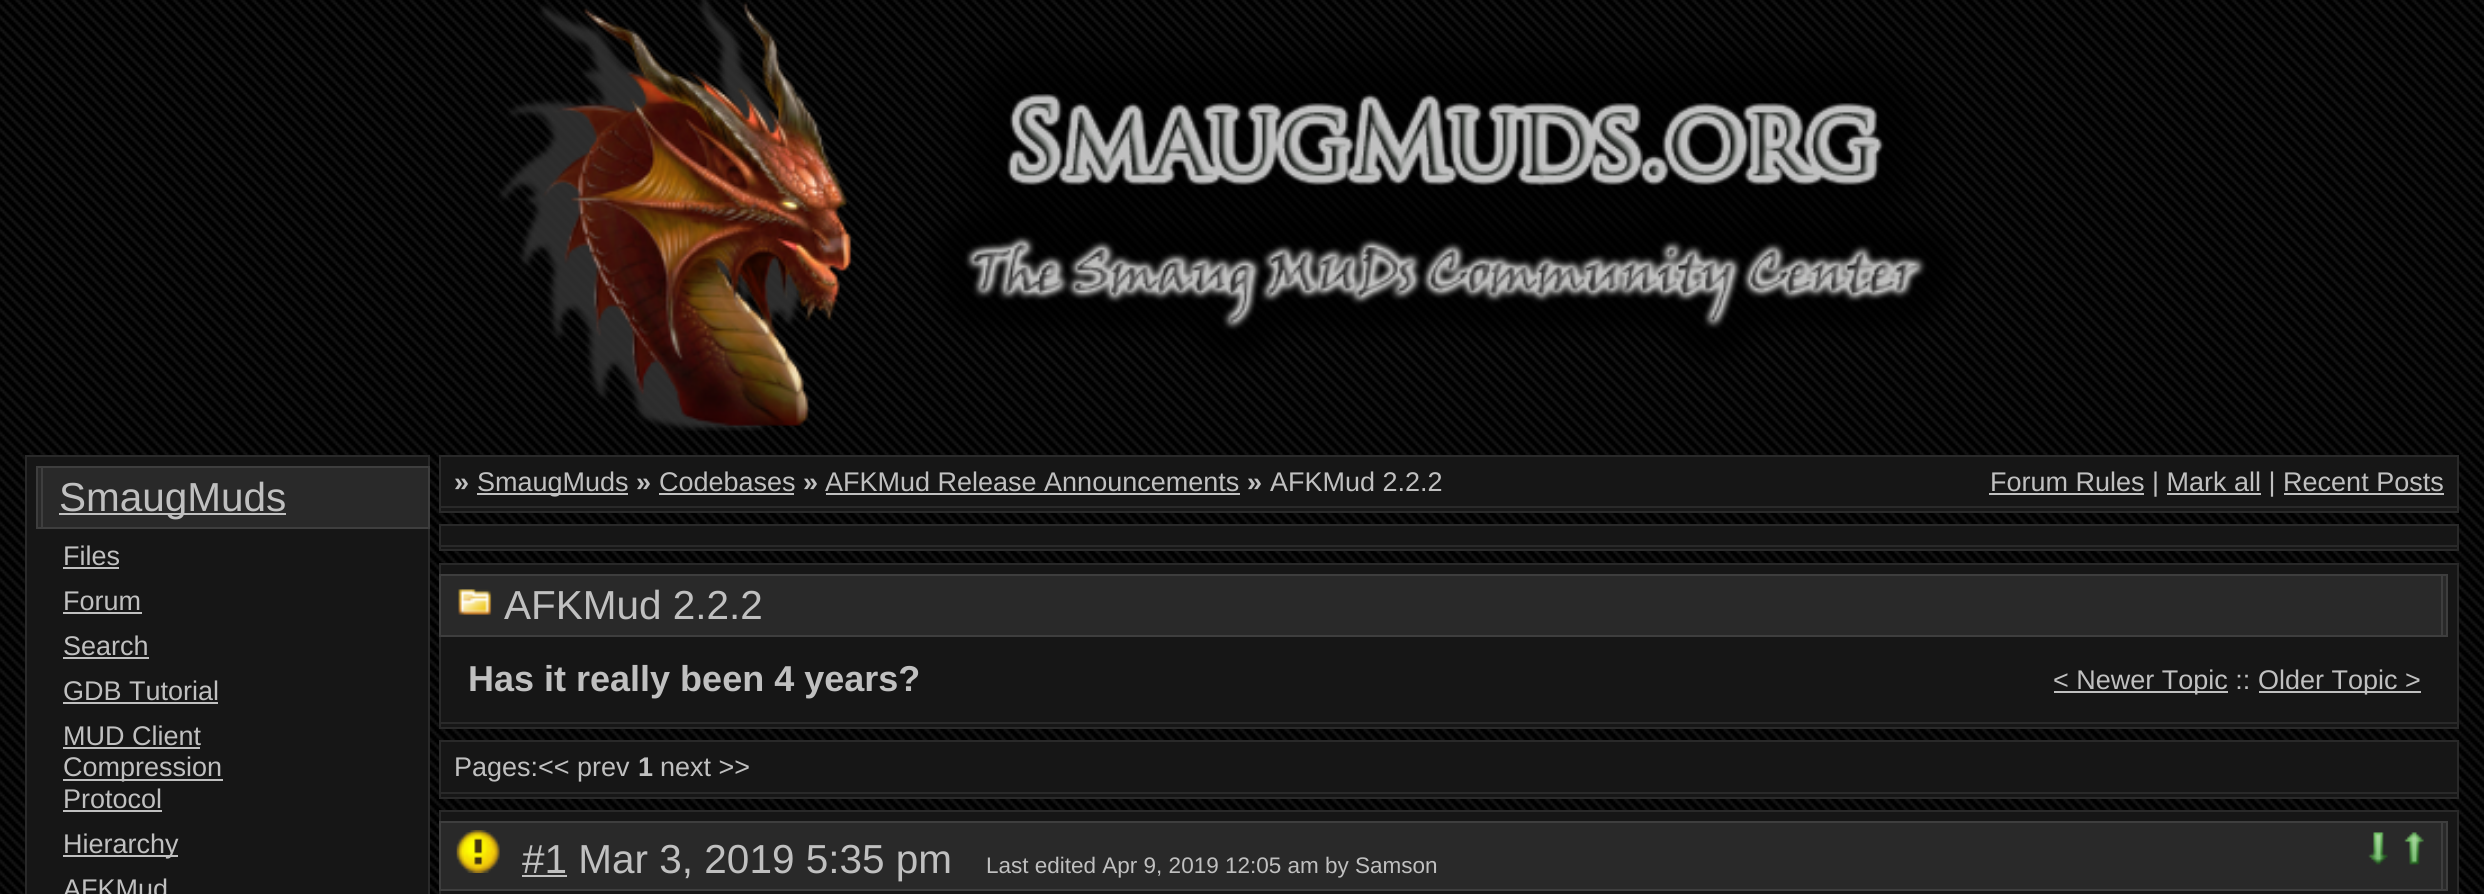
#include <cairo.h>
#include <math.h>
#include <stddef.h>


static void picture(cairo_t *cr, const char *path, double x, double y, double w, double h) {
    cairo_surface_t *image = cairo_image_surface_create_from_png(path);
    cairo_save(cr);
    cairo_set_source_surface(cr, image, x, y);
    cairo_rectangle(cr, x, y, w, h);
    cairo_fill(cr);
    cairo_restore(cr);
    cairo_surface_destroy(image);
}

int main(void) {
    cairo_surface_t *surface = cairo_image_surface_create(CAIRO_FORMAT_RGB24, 2484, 894);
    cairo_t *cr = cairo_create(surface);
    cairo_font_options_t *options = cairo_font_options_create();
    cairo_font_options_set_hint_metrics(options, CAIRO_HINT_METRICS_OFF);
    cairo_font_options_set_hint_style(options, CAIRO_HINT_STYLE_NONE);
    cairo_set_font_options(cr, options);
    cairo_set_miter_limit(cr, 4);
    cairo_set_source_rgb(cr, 1, 1, 1);
    cairo_paint(cr);
    picture(cr, "img1.png", 0, 0, 2484, 894);
    picture(cr, "img2.png", 498, 0, 1464, 431);
    cairo_set_source_rgb(cr, 0.086, 0.086, 0.086);
    cairo_rectangle(cr, 27, 457, 401, 437);
    cairo_fill(cr);
    cairo_set_source_rgb(cr, 0.161, 0.161, 0.161);
    cairo_rectangle(cr, 25, 455, 405, 2);
    cairo_fill(cr);
    cairo_rectangle(cr, 428, 455, 2, 439);
    cairo_fill(cr);
    cairo_rectangle(cr, 25, 455, 2, 439);
    cairo_fill(cr);
    cairo_rectangle(cr, 38, 468, 390, 59);
    cairo_fill(cr);
    cairo_set_source_rgb(cr, 0.243, 0.243, 0.243);
    cairo_rectangle(cr, 36, 466, 394, 2);
    cairo_fill(cr);
    cairo_rectangle(cr, 428, 466, 2, 63);
    cairo_fill(cr);
    cairo_rectangle(cr, 36, 527, 394, 2);
    cairo_fill(cr);
    cairo_rectangle(cr, 36, 466, 2, 63);
    cairo_fill(cr);
    cairo_rectangle(cr, 41, 466, 2, 63);
    cairo_fill(cr);
    cairo_set_source_rgb(cr, 0.753, 0.753, 0.753);
    cairo_rectangle(cr, 59, 513, 227, 2);
    cairo_fill(cr);
    cairo_select_font_face(cr, "Liberation Sans", CAIRO_FONT_SLANT_NORMAL, CAIRO_FONT_WEIGHT_NORMAL);
    cairo_set_font_size(cr, 40.5);
    cairo_move_to(cr, 59, 511);
    cairo_show_text(cr, "SmaugMuds");
    cairo_set_font_size(cr, 27);
    cairo_move_to(cr, 63, 565);
    cairo_show_text(cr, "Files");
    cairo_rectangle(cr, 63, 567, 56, 2);
    cairo_fill(cr);
    cairo_move_to(cr, 63, 610);
    cairo_show_text(cr, "Forum");
    cairo_rectangle(cr, 63, 612, 79, 2);
    cairo_fill(cr);
    cairo_move_to(cr, 63, 655);
    cairo_show_text(cr, "Search");
    cairo_rectangle(cr, 63, 657, 86, 2);
    cairo_fill(cr);
    cairo_move_to(cr, 63, 700);
    cairo_show_text(cr, "GDB Tutorial");
    cairo_rectangle(cr, 63, 702, 155, 2);
    cairo_fill(cr);
    cairo_move_to(cr, 63, 745);
    cairo_show_text(cr, "MUD Client");
    cairo_rectangle(cr, 63, 747, 137, 2);
    cairo_fill(cr);
    cairo_rectangle(cr, 63, 779, 160, 2);
    cairo_fill(cr);
    cairo_move_to(cr, 63, 776);
    cairo_show_text(cr, "Compression");
    cairo_move_to(cr, 63, 808);
    cairo_show_text(cr, "Protocol");
    cairo_rectangle(cr, 63, 810, 99, 2);
    cairo_fill(cr);
    cairo_rectangle(cr, 63, 855, 115, 2);
    cairo_fill(cr);
    cairo_move_to(cr, 63, 853);
    cairo_show_text(cr, "Hierarchy");
    cairo_move_to(cr, 63, 898);
    cairo_show_text(cr, "AFKMud");
    cairo_set_source_rgb(cr, 0.086, 0.086, 0.086);
    cairo_rectangle(cr, 441, 457, 2016, 54);
    cairo_fill(cr);
    cairo_set_source_rgb(cr, 0.161, 0.161, 0.161);
    cairo_rectangle(cr, 439, 455, 2020, 2);
    cairo_fill(cr);
    cairo_rectangle(cr, 2457, 455, 2, 58);
    cairo_fill(cr);
    cairo_rectangle(cr, 439, 506, 2020, 2);
    cairo_fill(cr);
    cairo_rectangle(cr, 439, 511, 2020, 2);
    cairo_fill(cr);
    cairo_rectangle(cr, 439, 455, 2, 58);
    cairo_fill(cr);
    cairo_select_font_face(cr, "Liberation Sans", CAIRO_FONT_SLANT_NORMAL, CAIRO_FONT_WEIGHT_BOLD);
    cairo_set_source_rgb(cr, 0.753, 0.753, 0.753);
    cairo_move_to(cr, 454, 491);
    cairo_show_text(cr, "»");
    cairo_rectangle(cr, 477, 493, 151, 2);
    cairo_fill(cr);
    cairo_select_font_face(cr, "Liberation Sans", CAIRO_FONT_SLANT_NORMAL, CAIRO_FONT_WEIGHT_NORMAL);
    cairo_move_to(cr, 477, 491);
    cairo_show_text(cr, "SmaugMuds");
    cairo_select_font_face(cr, "Liberation Sans", CAIRO_FONT_SLANT_NORMAL, CAIRO_FONT_WEIGHT_BOLD);
    cairo_move_to(cr, 636, 491);
    cairo_show_text(cr, "»");
    cairo_select_font_face(cr, "Liberation Sans", CAIRO_FONT_SLANT_NORMAL, CAIRO_FONT_WEIGHT_NORMAL);
    cairo_move_to(cr, 659, 491);
    cairo_show_text(cr, "Codebases");
    cairo_rectangle(cr, 659, 493, 135, 2);
    cairo_fill(cr);
    cairo_select_font_face(cr, "Liberation Sans", CAIRO_FONT_SLANT_NORMAL, CAIRO_FONT_WEIGHT_BOLD);
    cairo_move_to(cr, 803, 491);
    cairo_show_text(cr, "»");
    cairo_select_font_face(cr, "Liberation Sans", CAIRO_FONT_SLANT_NORMAL, CAIRO_FONT_WEIGHT_NORMAL);
    cairo_move_to(cr, 825, 491);
    cairo_show_text(cr, "AFKMud Release Announcements");
    cairo_rectangle(cr, 826, 493, 414, 2);
    cairo_fill(cr);
    cairo_select_font_face(cr, "Liberation Sans", CAIRO_FONT_SLANT_NORMAL, CAIRO_FONT_WEIGHT_BOLD);
    cairo_move_to(cr, 1247, 491);
    cairo_show_text(cr, "»");
    cairo_select_font_face(cr, "Liberation Sans", CAIRO_FONT_SLANT_NORMAL, CAIRO_FONT_WEIGHT_NORMAL);
    cairo_move_to(cr, 1270, 491);
    cairo_show_text(cr, "AFKMud 2.2.2");
    cairo_rectangle(cr, 1989, 493, 155, 2);
    cairo_fill(cr);
    cairo_move_to(cr, 1990, 491);
    cairo_show_text(cr, "Forum Rules | Mark all | Recent Posts");
    cairo_rectangle(cr, 2167, 493, 94, 2);
    cairo_fill(cr);
    cairo_rectangle(cr, 2284, 493, 160, 2);
    cairo_fill(cr);
    cairo_set_source_rgb(cr, 0.086, 0.086, 0.086);
    cairo_rectangle(cr, 441, 526, 2016, 23);
    cairo_fill(cr);
    cairo_set_source_rgb(cr, 0.161, 0.161, 0.161);
    cairo_rectangle(cr, 439, 524, 2020, 2);
    cairo_fill(cr);
    cairo_rectangle(cr, 2457, 524, 2, 27);
    cairo_fill(cr);
    cairo_rectangle(cr, 439, 545, 2020, 2);
    cairo_fill(cr);
    cairo_rectangle(cr, 439, 549, 2020, 2);
    cairo_fill(cr);
    cairo_rectangle(cr, 439, 524, 2, 27);
    cairo_fill(cr);
    cairo_set_source_rgb(cr, 0.086, 0.086, 0.086);
    cairo_rectangle(cr, 441, 565, 2016, 162);
    cairo_fill(cr);
    cairo_set_source_rgb(cr, 0.161, 0.161, 0.161);
    cairo_rectangle(cr, 439, 563, 2020, 2);
    cairo_fill(cr);
    cairo_rectangle(cr, 2457, 563, 2, 166);
    cairo_fill(cr);
    cairo_rectangle(cr, 439, 722, 2020, 2);
    cairo_fill(cr);
    cairo_rectangle(cr, 439, 727, 2020, 2);
    cairo_fill(cr);
    cairo_rectangle(cr, 439, 563, 2, 166);
    cairo_fill(cr);
    cairo_rectangle(cr, 441, 576, 2005, 59);
    cairo_fill(cr);
    cairo_set_source_rgb(cr, 0.243, 0.243, 0.243);
    cairo_rectangle(cr, 439, 574, 2009, 2);
    cairo_fill(cr);
    cairo_rectangle(cr, 2441, 574, 2, 63);
    cairo_fill(cr);
    cairo_rectangle(cr, 2446, 574, 2, 63);
    cairo_fill(cr);
    cairo_rectangle(cr, 439, 635, 2009, 2);
    cairo_fill(cr);
    cairo_rectangle(cr, 439, 574, 2, 63);
    cairo_fill(cr);
    picture(cr, "img3.png", 458, 589, 34, 26);
    cairo_set_font_size(cr, 40.5);
    cairo_set_source_rgb(cr, 0.753, 0.753, 0.753);
    cairo_move_to(cr, 504, 619);
    cairo_show_text(cr, "AFKMud 2.2.2");
    cairo_select_font_face(cr, "Liberation Sans", CAIRO_FONT_SLANT_NORMAL, CAIRO_FONT_WEIGHT_BOLD);
    cairo_set_font_size(cr, 36);
    cairo_move_to(cr, 468, 691);
    cairo_show_text(cr, "Has it really been 4 years?");
    cairo_rectangle(cr, 2054, 691, 174, 2);
    cairo_fill(cr);
    cairo_select_font_face(cr, "Liberation Sans", CAIRO_FONT_SLANT_NORMAL, CAIRO_FONT_WEIGHT_NORMAL);
    cairo_set_font_size(cr, 27);
    cairo_move_to(cr, 2053, 689);
    cairo_show_text(cr, "< Newer Topic ::");
    cairo_rectangle(cr, 2259, 691, 162, 2);
    cairo_fill(cr);
    cairo_move_to(cr, 2258, 689);
    cairo_show_text(cr, "Older Topic >");
    cairo_set_source_rgb(cr, 0.086, 0.086, 0.086);
    cairo_rectangle(cr, 441, 742, 2016, 55);
    cairo_fill(cr);
    cairo_set_source_rgb(cr, 0.161, 0.161, 0.161);
    cairo_rectangle(cr, 439, 740, 2020, 2);
    cairo_fill(cr);
    cairo_rectangle(cr, 2457, 740, 2, 59);
    cairo_fill(cr);
    cairo_rectangle(cr, 439, 792, 2020, 2);
    cairo_fill(cr);
    cairo_rectangle(cr, 439, 797, 2020, 2);
    cairo_fill(cr);
    cairo_rectangle(cr, 439, 740, 2, 59);
    cairo_fill(cr);
    cairo_set_source_rgb(cr, 0.753, 0.753, 0.753);
    cairo_move_to(cr, 454, 776);
    cairo_show_text(cr, "Pages:<< prev");
    cairo_select_font_face(cr, "Liberation Sans", CAIRO_FONT_SLANT_NORMAL, CAIRO_FONT_WEIGHT_BOLD);
    cairo_move_to(cr, 638, 776);
    cairo_show_text(cr, "1");
    cairo_select_font_face(cr, "Liberation Sans", CAIRO_FONT_SLANT_NORMAL, CAIRO_FONT_WEIGHT_NORMAL);
    cairo_move_to(cr, 660, 776);
    cairo_show_text(cr, "next >>");
    cairo_set_source_rgb(cr, 0.086, 0.086, 0.086);
    cairo_rectangle(cr, 441, 812, 2016, 82);
    cairo_fill(cr);
    cairo_set_source_rgb(cr, 0.161, 0.161, 0.161);
    cairo_rectangle(cr, 439, 810, 2020, 2);
    cairo_fill(cr);
    cairo_rectangle(cr, 2457, 810, 2, 84);
    cairo_fill(cr);
    cairo_rectangle(cr, 439, 810, 2, 84);
    cairo_fill(cr);
    cairo_rectangle(cr, 441, 823, 2005, 66);
    cairo_fill(cr);
    cairo_set_source_rgb(cr, 0.243, 0.243, 0.243);
    cairo_rectangle(cr, 439, 821, 2009, 2);
    cairo_fill(cr);
    cairo_rectangle(cr, 2441, 821, 2, 70);
    cairo_fill(cr);
    cairo_rectangle(cr, 2446, 821, 2, 70);
    cairo_fill(cr);
    cairo_rectangle(cr, 439, 889, 2009, 2);
    cairo_fill(cr);
    cairo_rectangle(cr, 439, 821, 2, 70);
    cairo_fill(cr);
    picture(cr, "img4.png", 456, 830, 44, 43);
    cairo_set_source_rgb(cr, 0.753, 0.753, 0.753);
    cairo_rectangle(cr, 522, 875, 45, 2);
    cairo_fill(cr);
    cairo_set_font_size(cr, 40.5);
    cairo_move_to(cr, 522, 873);
    cairo_show_text(cr, "#1 Mar 3, 2019 5:35 pm");
    cairo_set_font_size(cr, 22.5);
    cairo_move_to(cr, 986, 873);
    cairo_show_text(cr, "Last edited Apr 9, 2019 12:05 am by Samson");
    picture(cr, "img5.png", 2368, 832, 20, 33);
    picture(cr, "img6.png", 2404, 832, 20, 33);
    cairo_surface_write_to_png(surface, "page.png");
    cairo_font_options_destroy(options);
    cairo_destroy(cr);
    cairo_surface_destroy(surface);
    return 0;
}
